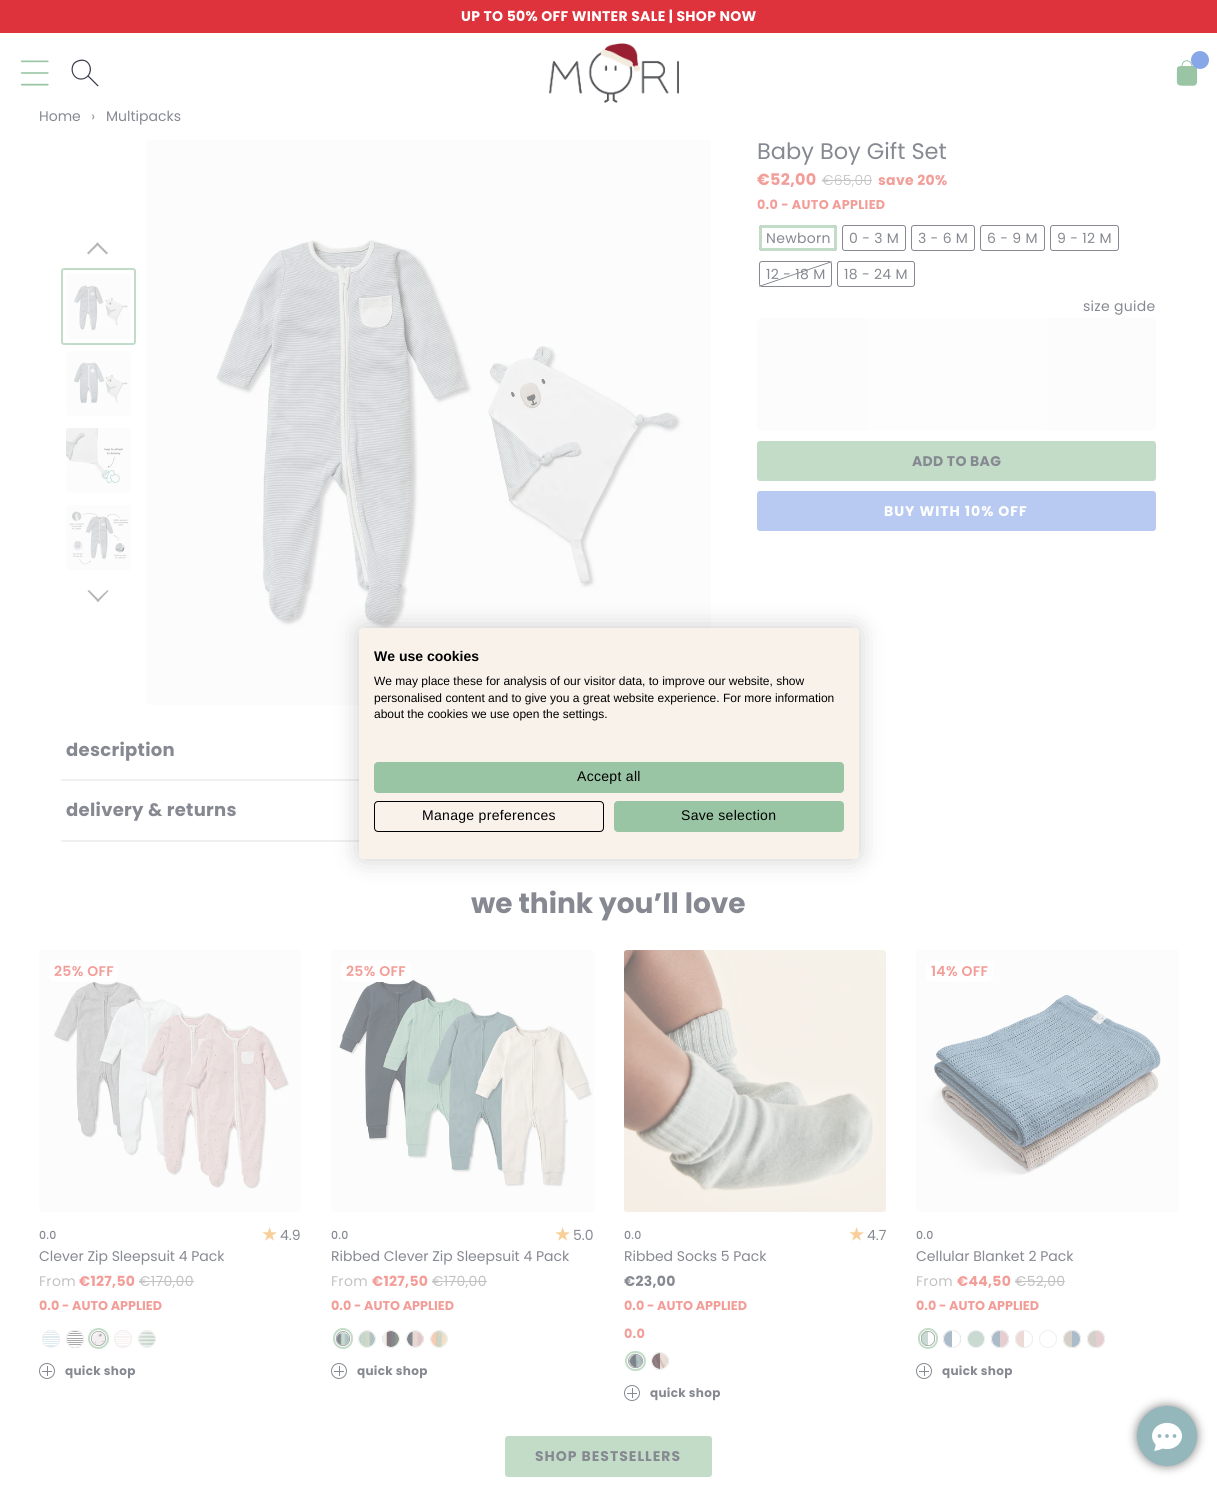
#include <cairo.h>
#include <math.h>
#include <stddef.h>


static void spaced_text(cairo_t *cr, double x, double y, const char *s, double letter, double word) {
    cairo_move_to(cr, x, y);
    while (*s) {
        char ch[5] = {0};
        int n = 0;
        do ch[n++] = *s++; while ((*s & 0xC0) == 0x80);
        cairo_show_text(cr, ch);
        cairo_rel_move_to(cr, letter + word * (*ch == ' '), 0);
    }
}

static void round_rect(cairo_t *cr, double x, double y, double w, double h, double r) {
    cairo_new_sub_path(cr);
    cairo_arc(cr, x + w - r, y + h - r, r, 0, M_PI / 2);
    cairo_arc(cr, x + r, y + h - r, r, M_PI / 2, M_PI);
    cairo_arc(cr, x + r, y + r, r, M_PI, 1.5 * M_PI);
    cairo_arc(cr, x + w - r, y + r, r, 1.5 * M_PI, 2 * M_PI);
    cairo_close_path(cr);
}

static void shadow(cairo_t *cr, double x, double y, double w, double h, double r, double blur, double alpha) {
    cairo_push_group_with_content(cr, CAIRO_CONTENT_ALPHA);
    cairo_set_operator(cr, CAIRO_OPERATOR_SOURCE);
    for (int i = 15; i >= -15 && fmin(w, h) + blur * i / 3 > 0; i -= 2) {
        double e = blur * i / 6;
        cairo_set_source_rgba(cr, 0, 0, 0, alpha * erfc((i - 1) / 8.5) / 2);
        round_rect(cr, x - e, y - e, w + 2 * e, h + 2 * e, fmax(0, fmin(r + e + blur * .6, fmin(w, h) / 2 + e)));
        cairo_fill(cr);
    }
    cairo_pattern_t *soft = cairo_pop_group(cr);
    cairo_mask(cr, soft);
    cairo_pattern_destroy(soft);
}

static void picture(cairo_t *cr, const char *path, double x, double y, double w, double h) {
    cairo_surface_t *image = cairo_image_surface_create_from_png(path);
    cairo_save(cr);
    cairo_set_source_surface(cr, image, x, y);
    cairo_rectangle(cr, x, y, w, h);
    cairo_fill(cr);
    cairo_restore(cr);
    cairo_surface_destroy(image);
}

int main(void) {
    cairo_surface_t *surface = cairo_image_surface_create(CAIRO_FORMAT_RGB24, 1217, 1486);
    cairo_t *cr = cairo_create(surface);
    cairo_font_options_t *options = cairo_font_options_create();
    cairo_font_options_set_hint_metrics(options, CAIRO_HINT_METRICS_OFF);
    cairo_font_options_set_hint_style(options, CAIRO_HINT_STYLE_NONE);
    cairo_set_font_options(cr, options);
    cairo_set_miter_limit(cr, 4);
    cairo_pattern_t *gradient;
    cairo_set_source_rgb(cr, 1, 1, 1);
    cairo_paint(cr);
    cairo_set_source_rgb(cr, 0.871, 0.2, 0.235);
    cairo_rectangle(cr, 0, 0, 1217, 33);
    cairo_fill(cr);
    cairo_select_font_face(cr, "Poppins", CAIRO_FONT_SLANT_NORMAL, CAIRO_FONT_WEIGHT_BOLD);
    cairo_set_font_size(cr, 14);
    cairo_set_source_rgb(cr, 1, 1, 1);
    spaced_text(cr, 461, 21, "UP TO 50% OFF WINTER SALE | SHOP NOW", 0.3, 0);
    picture(cr, "img1.png", 20, 60, 29, 26);
    picture(cr, "img2.png", 71, 59, 28, 28);
    picture(cr, "img3.png", 548, 43, 131, 60);
    picture(cr, "img4.png", 1176, 60, 22, 26);
    cairo_set_source_rgb(cr, 0.533, 0.655, 0.91);
    cairo_arc(cr, 1200, 60, 9, 0, 2 * M_PI);
    cairo_fill(cr);
    cairo_select_font_face(cr, "Poppins", CAIRO_FONT_SLANT_NORMAL, CAIRO_FONT_WEIGHT_NORMAL);
    cairo_set_source_rgb(cr, 0.525, 0.537, 0.569);
    cairo_move_to(cr, 39, 121);
    cairo_show_text(cr, "Home");
    cairo_select_font_face(cr, "Poppins Medium", CAIRO_FONT_SLANT_NORMAL, CAIRO_FONT_WEIGHT_NORMAL);
    cairo_set_source_rgb(cr, 0.643, 0.643, 0.643);
    spaced_text(cr, 91, 121, "›", 0.3, 0);
    cairo_select_font_face(cr, "Poppins", CAIRO_FONT_SLANT_NORMAL, CAIRO_FONT_WEIGHT_NORMAL);
    cairo_set_source_rgb(cr, 0.525, 0.537, 0.569);
    cairo_move_to(cr, 106, 121);
    cairo_show_text(cr, "Multipacks");
    cairo_set_font_size(cr, 22.5);
    cairo_move_to(cr, 757, 159);
    cairo_show_text(cr, "Baby Boy Gift Set");
    cairo_select_font_face(cr, "Poppins", CAIRO_FONT_SLANT_NORMAL, CAIRO_FONT_WEIGHT_BOLD);
    cairo_set_font_size(cr, 16);
    cairo_set_source_rgb(cr, 0.953, 0.616, 0.596);
    spaced_text(cr, 757, 185, "€52,00", 0.3, 0);
    cairo_select_font_face(cr, "Poppins Light", CAIRO_FONT_SLANT_NORMAL, CAIRO_FONT_WEIGHT_NORMAL);
    cairo_set_font_size(cr, 14);
    cairo_set_source_rgb(cr, 0.761, 0.761, 0.761);
    spaced_text(cr, 822, 185, "€65,00", 0.3, 0);
    cairo_rectangle(cr, 822, 180, 50, 1);
    cairo_fill(cr);
    cairo_select_font_face(cr, "Poppins", CAIRO_FONT_SLANT_NORMAL, CAIRO_FONT_WEIGHT_BOLD);
    cairo_set_source_rgb(cr, 0.953, 0.616, 0.596);
    spaced_text(cr, 878, 185, "save 20%", 0.3, 0);
    cairo_set_font_size(cr, 12.75);
    spaced_text(cr, 757, 209, "0.0 - AUTO APPLIED", 0.3, 0);
    round_rect(cr, 759.5, 225.5, 77, 25, 2.5);
    cairo_set_source_rgb(cr, 0.525, 0.537, 0.569);
    cairo_set_line_width(cr, 1);
    cairo_stroke(cr);
    round_rect(cr, 760.5, 226.5, 75, 23, 1.5);
    cairo_set_source_rgb(cr, 0.761, 0.863, 0.784);
    cairo_set_line_width(cr, 3);
    cairo_stroke(cr);
    cairo_select_font_face(cr, "Poppins", CAIRO_FONT_SLANT_NORMAL, CAIRO_FONT_WEIGHT_NORMAL);
    cairo_set_font_size(cr, 14);
    cairo_set_source_rgb(cr, 0.525, 0.537, 0.569);
    spaced_text(cr, 766, 243, "Newborn", 0.3, 0);
    round_rect(cr, 842.5, 225.5, 63, 25, 2.5);
    cairo_set_line_width(cr, 1);
    cairo_stroke(cr);
    spaced_text(cr, 849, 243, "0 - 3 M", 0.3, 0);
    round_rect(cr, 911.5, 225.5, 63, 25, 2.5);
    cairo_stroke(cr);
    spaced_text(cr, 918, 243, "3 - 6 M", 0.3, 0);
    round_rect(cr, 980.5, 225.5, 64, 25, 2.5);
    cairo_stroke(cr);
    spaced_text(cr, 987, 243, "6 - 9 M", 0.3, 0);
    round_rect(cr, 1050.5, 225.5, 68, 25, 2.5);
    cairo_stroke(cr);
    spaced_text(cr, 1057, 243, "9 - 12 M", 0.3, 0);
    gradient = cairo_pattern_create_linear(874, 272, 859, 228);
    cairo_pattern_add_color_stop_rgba(gradient, 0, 1, 1, 1, 1);
    cairo_pattern_add_color_stop_rgba(gradient, 0.48, 1, 1, 1, 1);
    cairo_pattern_add_color_stop_rgba(gradient, 0.5, 0.525, 0.537, 0.569, 1);
    cairo_pattern_add_color_stop_rgba(gradient, 0.52, 1, 1, 1, 1);
    cairo_pattern_add_color_stop_rgba(gradient, 1, 1, 1, 1, 1);
    cairo_set_source(cr, gradient);
    cairo_pattern_destroy(gradient);
    cairo_rectangle(cr, 831, 261, 1, 1);
    cairo_fill(cr);
    gradient = cairo_pattern_create_linear(803, 296, 788, 252);
    cairo_pattern_add_color_stop_rgba(gradient, 0, 1, 1, 1, 1);
    cairo_pattern_add_color_stop_rgba(gradient, 0.48, 1, 1, 1, 1);
    cairo_pattern_add_color_stop_rgba(gradient, 0.5, 0.525, 0.537, 0.569, 1);
    cairo_pattern_add_color_stop_rgba(gradient, 0.52, 1, 1, 1, 1);
    cairo_pattern_add_color_stop_rgba(gradient, 1, 1, 1, 1, 1);
    cairo_set_source(cr, gradient);
    cairo_pattern_destroy(gradient);
    cairo_rectangle(cr, 760, 262, 71, 24);
    cairo_fill(cr);
    gradient = cairo_pattern_create_linear(732, 320, 717, 276);
    cairo_pattern_add_color_stop_rgba(gradient, 0, 1, 1, 1, 1);
    cairo_pattern_add_color_stop_rgba(gradient, 0.48, 1, 1, 1, 1);
    cairo_pattern_add_color_stop_rgba(gradient, 0.5, 0.525, 0.537, 0.569, 1);
    cairo_pattern_add_color_stop_rgba(gradient, 0.52, 1, 1, 1, 1);
    cairo_pattern_add_color_stop_rgba(gradient, 1, 1, 1, 1, 1);
    cairo_set_source(cr, gradient);
    cairo_pattern_destroy(gradient);
    cairo_rectangle(cr, 759, 286, 1, 1);
    cairo_fill(cr);
    round_rect(cr, 759.5, 261.5, 72, 25, 2.5);
    cairo_set_source_rgb(cr, 0.525, 0.537, 0.569);
    cairo_stroke(cr);
    spaced_text(cr, 766, 279, "12 - 18 M", 0.3, 0);
    round_rect(cr, 837.5, 261.5, 77, 25, 2.5);
    cairo_stroke(cr);
    spaced_text(cr, 844, 279, "18 - 24 M", 0.3, 0);
    spaced_text(cr, 1083, 311, "size guide", 0.3, 0);
    gradient = cairo_pattern_create_linear(757, 375, 1156, 375);
    cairo_pattern_add_color_stop_rgba(gradient, 0, 0.988, 0.988, 0.988, 1);
    cairo_pattern_add_color_stop_rgba(gradient, 0.5, 0.992, 0.992, 0.992, 1);
    cairo_pattern_add_color_stop_rgba(gradient, 1, 0.988, 0.988, 0.988, 1);
    cairo_set_source(cr, gradient);
    cairo_pattern_destroy(gradient);
    round_rect(cr, 757, 318, 399, 113, 4);
    cairo_fill(cr);
    cairo_set_source_rgb(cr, 0.761, 0.863, 0.784);
    round_rect(cr, 757, 441, 399, 40, 3);
    cairo_fill(cr);
    cairo_select_font_face(cr, "Poppins", CAIRO_FONT_SLANT_NORMAL, CAIRO_FONT_WEIGHT_BOLD);
    cairo_set_source_rgb(cr, 0.525, 0.537, 0.569);
    spaced_text(cr, 912, 466, "ADD TO BAG", 0.3, 0);
    cairo_set_source_rgb(cr, 0.722, 0.792, 0.945);
    round_rect(cr, 757, 491, 399, 40, 3);
    cairo_fill(cr);
    cairo_set_source_rgb(cr, 1, 1, 1);
    spaced_text(cr, 884, 516, "BUY WITH 10% OFF", 1, 0);
    cairo_set_source_rgb(cr, 0.714, 0.714, 0.714);
    cairo_new_path(cr);
    cairo_move_to(cr, 97.5, 242.5);
    cairo_line_to(cr, 108, 253);
    cairo_line_to(cr, 106.5, 254.5);
    cairo_line_to(cr, 96, 244);
    cairo_close_path(cr);
    cairo_fill(cr);
    cairo_new_path(cr);
    cairo_move_to(cr, 97.5, 242.5);
    cairo_line_to(cr, 99, 244);
    cairo_line_to(cr, 88.5, 254.5);
    cairo_line_to(cr, 87, 253);
    cairo_close_path(cr);
    cairo_fill(cr);
    round_rect(cr, 62, 269, 73, 75, 2);
    cairo_set_source_rgb(cr, 0.761, 0.863, 0.784);
    cairo_set_line_width(cr, 2);
    cairo_stroke(cr);
    picture(cr, "img5.png", 66, 274, 65, 65);
    picture(cr, "img6.png", 66, 351, 65, 65);
    picture(cr, "img7.png", 66, 428, 65, 65);
    picture(cr, "img8.png", 66, 505, 65, 65);
    cairo_set_source_rgb(cr, 0.714, 0.714, 0.714);
    cairo_new_path(cr);
    cairo_move_to(cr, 107.5, 590);
    cairo_line_to(cr, 108.5, 591);
    cairo_line_to(cr, 98, 602);
    cairo_line_to(cr, 96.5, 600.5);
    cairo_close_path(cr);
    cairo_fill(cr);
    cairo_new_path(cr);
    cairo_move_to(cr, 89, 590);
    cairo_line_to(cr, 99.5, 600.5);
    cairo_line_to(cr, 98, 602);
    cairo_line_to(cr, 87.5, 591);
    cairo_close_path(cr);
    cairo_fill(cr);
    picture(cr, "img9.png", 146, 140, 565, 565);
    cairo_set_source_rgb(cr, 0.937, 0.941, 0.941);
    cairo_rectangle(cr, 61, 779, 298, 2);
    cairo_fill(cr);
    cairo_set_font_size(cr, 18);
    cairo_set_source_rgb(cr, 0.525, 0.537, 0.569);
    spaced_text(cr, 66, 756, "description", 0.3, 0);
    cairo_set_source_rgb(cr, 0.937, 0.941, 0.941);
    cairo_rectangle(cr, 61, 840, 298, 2);
    cairo_fill(cr);
    cairo_set_source_rgb(cr, 0.525, 0.537, 0.569);
    spaced_text(cr, 66, 816, "delivery & returns", 0.3, 0);
    cairo_set_font_size(cr, 28);
    cairo_move_to(cr, 471, 913);
    cairo_show_text(cr, "we think you’ll love");
    picture(cr, "img10.png", 39, 950, 262, 262);
    cairo_set_source_rgb(cr, 1, 1, 1);
    round_rect(cr, 49, 960, 69, 22, 6);
    cairo_fill(cr);
    cairo_select_font_face(cr, "Poppins SemiBold", CAIRO_FONT_SLANT_NORMAL, CAIRO_FONT_WEIGHT_NORMAL);
    cairo_set_font_size(cr, 14);
    cairo_set_source_rgb(cr, 0.953, 0.616, 0.596);
    spaced_text(cr, 54, 976, "25% OFF", 0.3, 0);
    cairo_select_font_face(cr, "Poppins Medium", CAIRO_FONT_SLANT_NORMAL, CAIRO_FONT_WEIGHT_NORMAL);
    cairo_set_font_size(cr, 11);
    cairo_set_source_rgb(cr, 0.525, 0.537, 0.569);
    spaced_text(cr, 39, 1239, "0.0", 0.3, 0);
    picture(cr, "img11.png", 262, 1227, 15, 14);
    cairo_select_font_face(cr, "Poppins", CAIRO_FONT_SLANT_NORMAL, CAIRO_FONT_WEIGHT_NORMAL);
    cairo_set_font_size(cr, 14);
    cairo_move_to(cr, 280, 1240);
    cairo_show_text(cr, "4.9");
    cairo_move_to(cr, 39, 1261);
    cairo_show_text(cr, "Clever Zip Sleepsuit 4 Pack");
    cairo_set_source_rgb(cr, 0.761, 0.761, 0.761);
    spaced_text(cr, 39, 1286, "From", 0.3, 0);
    cairo_select_font_face(cr, "Poppins", CAIRO_FONT_SLANT_NORMAL, CAIRO_FONT_WEIGHT_BOLD);
    cairo_set_source_rgb(cr, 0.953, 0.616, 0.596);
    spaced_text(cr, 79, 1286, "€127,50", 0.3, 0);
    cairo_select_font_face(cr, "Poppins", CAIRO_FONT_SLANT_NORMAL, CAIRO_FONT_WEIGHT_NORMAL);
    cairo_set_source_rgb(cr, 0.761, 0.761, 0.761);
    spaced_text(cr, 139, 1286, "€170,00", 0.3, 0);
    cairo_rectangle(cr, 139, 1281, 55, 1);
    cairo_fill(cr);
    cairo_select_font_face(cr, "Poppins", CAIRO_FONT_SLANT_NORMAL, CAIRO_FONT_WEIGHT_BOLD);
    cairo_set_font_size(cr, 12.75);
    cairo_set_source_rgb(cr, 0.953, 0.616, 0.596);
    cairo_move_to(cr, 39, 1310);
    cairo_show_text(cr, "0.0 - AUTO APPLIED");
    picture(cr, "img12.png", 42, 1330, 18, 17);
    cairo_arc(cr, 51, 1339, 8.5, 0, 2 * M_PI);
    cairo_set_source_rgb(cr, 0.937, 0.941, 0.937);
    cairo_set_line_width(cr, 1);
    cairo_stroke(cr);
    cairo_set_source_rgb(cr, 0.663, 0.663, 0.663);
    cairo_arc(cr, 75, 1339, 9, 0, 2 * M_PI);
    cairo_fill(cr);
    picture(cr, "img13.png", 66, 1330, 18, 17);
    cairo_arc(cr, 75, 1339, 8.5, 0, 2 * M_PI);
    cairo_set_source_rgb(cr, 0.937, 0.941, 0.937);
    cairo_stroke(cr);
    picture(cr, "img14.png", 91, 1331, 15, 15);
    cairo_arc(cr, 98.5, 1338.5, 7.1, 0, 2 * M_PI);
    cairo_set_source_rgb(cr, 0.639, 0.639, 0.639);
    cairo_set_line_width(cr, 0.8);
    cairo_stroke(cr);
    cairo_arc(cr, 98.5, 1338.5, 9.5, 0, 2 * M_PI);
    cairo_set_source_rgb(cr, 0.761, 0.863, 0.784);
    cairo_set_line_width(cr, 2);
    cairo_stroke(cr);
    picture(cr, "img15.png", 114, 1330, 18, 17);
    cairo_arc(cr, 123, 1339, 8.5, 0, 2 * M_PI);
    cairo_set_source_rgb(cr, 0.937, 0.941, 0.937);
    cairo_set_line_width(cr, 1);
    cairo_stroke(cr);
    picture(cr, "img16.png", 138, 1330, 18, 18);
    cairo_arc(cr, 147, 1339, 8.5, 0, 2 * M_PI);
    cairo_stroke(cr);
    cairo_arc(cr, 47, 1371, 7.5, 0, 2 * M_PI);
    cairo_set_source_rgb(cr, 0.525, 0.537, 0.569);
    cairo_stroke(cr);
    cairo_rectangle(cr, 42, 1371, 10, 1);
    cairo_fill(cr);
    cairo_rectangle(cr, 47, 1366, 1, 10);
    cairo_fill(cr);
    cairo_set_font_size(cr, 12);
    spaced_text(cr, 65, 1375, "quick shop", 0.3, 0);
    picture(cr, "img17.png", 331, 950, 263, 262);
    cairo_set_source_rgb(cr, 1, 1, 1);
    round_rect(cr, 341, 960, 70, 22, 6);
    cairo_fill(cr);
    cairo_select_font_face(cr, "Poppins SemiBold", CAIRO_FONT_SLANT_NORMAL, CAIRO_FONT_WEIGHT_NORMAL);
    cairo_set_font_size(cr, 14);
    cairo_set_source_rgb(cr, 0.953, 0.616, 0.596);
    spaced_text(cr, 346, 976, "25% OFF", 0.3, 0);
    cairo_select_font_face(cr, "Poppins Medium", CAIRO_FONT_SLANT_NORMAL, CAIRO_FONT_WEIGHT_NORMAL);
    cairo_set_font_size(cr, 11);
    cairo_set_source_rgb(cr, 0.525, 0.537, 0.569);
    spaced_text(cr, 331, 1239, "0.0", 0.3, 0);
    picture(cr, "img11.png", 555, 1227, 15, 14);
    cairo_select_font_face(cr, "Poppins", CAIRO_FONT_SLANT_NORMAL, CAIRO_FONT_WEIGHT_NORMAL);
    cairo_set_font_size(cr, 14);
    cairo_move_to(cr, 573, 1240);
    cairo_show_text(cr, "5.0");
    cairo_move_to(cr, 331, 1261);
    cairo_show_text(cr, "Ribbed Clever Zip Sleepsuit 4 Pack");
    cairo_set_source_rgb(cr, 0.761, 0.761, 0.761);
    spaced_text(cr, 331, 1286, "From", 0.3, 0);
    cairo_select_font_face(cr, "Poppins", CAIRO_FONT_SLANT_NORMAL, CAIRO_FONT_WEIGHT_BOLD);
    cairo_set_source_rgb(cr, 0.953, 0.616, 0.596);
    spaced_text(cr, 372, 1286, "€127,50", 0.3, 0);
    cairo_select_font_face(cr, "Poppins", CAIRO_FONT_SLANT_NORMAL, CAIRO_FONT_WEIGHT_NORMAL);
    cairo_set_source_rgb(cr, 0.761, 0.761, 0.761);
    spaced_text(cr, 432, 1286, "€170,00", 0.3, 0);
    cairo_rectangle(cr, 432, 1281, 55, 1);
    cairo_fill(cr);
    cairo_select_font_face(cr, "Poppins", CAIRO_FONT_SLANT_NORMAL, CAIRO_FONT_WEIGHT_BOLD);
    cairo_set_font_size(cr, 12.75);
    cairo_set_source_rgb(cr, 0.953, 0.616, 0.596);
    cairo_move_to(cr, 331, 1310);
    cairo_show_text(cr, "0.0 - AUTO APPLIED");
    picture(cr, "img18.png", 335, 1331, 16, 16);
    round_rect(cr, 336.4, 1331.4, 13.2, 14.2, 6.6);
    cairo_set_source_rgb(cr, 0.639, 0.639, 0.639);
    cairo_set_line_width(cr, 0.8);
    cairo_stroke(cr);
    round_rect(cr, 334, 1329, 18, 19, 9);
    cairo_set_source_rgb(cr, 0.761, 0.863, 0.784);
    cairo_set_line_width(cr, 2);
    cairo_stroke(cr);
    picture(cr, "img19.png", 358, 1330, 18, 18);
    cairo_arc(cr, 367, 1339, 8.5, 0, 2 * M_PI);
    cairo_set_source_rgb(cr, 0.937, 0.941, 0.937);
    cairo_set_line_width(cr, 1);
    cairo_stroke(cr);
    picture(cr, "img20.png", 382, 1330, 18, 18);
    cairo_arc(cr, 391, 1339, 8.5, 0, 2 * M_PI);
    cairo_stroke(cr);
    picture(cr, "img21.png", 406, 1330, 18, 18);
    cairo_arc(cr, 415, 1339, 8.5, 0, 2 * M_PI);
    cairo_stroke(cr);
    picture(cr, "img22.png", 430, 1330, 18, 18);
    cairo_arc(cr, 439, 1339, 8.5, 0, 2 * M_PI);
    cairo_stroke(cr);
    cairo_arc(cr, 339, 1371, 7.5, 0, 2 * M_PI);
    cairo_set_source_rgb(cr, 0.525, 0.537, 0.569);
    cairo_stroke(cr);
    cairo_rectangle(cr, 334, 1371, 10, 1);
    cairo_fill(cr);
    cairo_rectangle(cr, 339, 1366, 1, 10);
    cairo_fill(cr);
    cairo_set_font_size(cr, 12);
    spaced_text(cr, 357, 1375, "quick shop", 0.3, 0);
    picture(cr, "img23.png", 624, 950, 262, 262);
    cairo_select_font_face(cr, "Poppins Medium", CAIRO_FONT_SLANT_NORMAL, CAIRO_FONT_WEIGHT_NORMAL);
    cairo_set_font_size(cr, 11);
    spaced_text(cr, 624, 1239, "0.0", 0.3, 0);
    picture(cr, "img11.png", 849, 1227, 15, 14);
    cairo_select_font_face(cr, "Poppins", CAIRO_FONT_SLANT_NORMAL, CAIRO_FONT_WEIGHT_NORMAL);
    cairo_set_font_size(cr, 14);
    cairo_move_to(cr, 867, 1240);
    cairo_show_text(cr, "4.7");
    cairo_move_to(cr, 624, 1261);
    cairo_show_text(cr, "Ribbed Socks 5 Pack");
    cairo_select_font_face(cr, "Poppins", CAIRO_FONT_SLANT_NORMAL, CAIRO_FONT_WEIGHT_BOLD);
    spaced_text(cr, 624, 1286, "€23,00", 0.3, 0);
    cairo_set_font_size(cr, 12.75);
    cairo_set_source_rgb(cr, 0.953, 0.616, 0.596);
    cairo_move_to(cr, 624, 1310);
    cairo_show_text(cr, "0.0 - AUTO APPLIED");
    spaced_text(cr, 624, 1338, "0.0", 0.3, 0);
    picture(cr, "img24.png", 628, 1353, 16, 16);
    round_rect(cr, 628.4, 1354.4, 14.2, 13.2, 6.6);
    cairo_set_source_rgb(cr, 0.639, 0.639, 0.639);
    cairo_set_line_width(cr, 0.8);
    cairo_stroke(cr);
    round_rect(cr, 626, 1352, 19, 18, 9);
    cairo_set_source_rgb(cr, 0.761, 0.863, 0.784);
    cairo_set_line_width(cr, 2);
    cairo_stroke(cr);
    picture(cr, "img25.png", 651, 1352, 18, 18);
    cairo_arc(cr, 660, 1361, 8.5, 0, 2 * M_PI);
    cairo_set_source_rgb(cr, 0.937, 0.941, 0.937);
    cairo_set_line_width(cr, 1);
    cairo_stroke(cr);
    cairo_arc(cr, 632, 1393, 7.5, 0, 2 * M_PI);
    cairo_set_source_rgb(cr, 0.525, 0.537, 0.569);
    cairo_stroke(cr);
    cairo_rectangle(cr, 627, 1393, 10, 1);
    cairo_fill(cr);
    cairo_rectangle(cr, 632, 1388, 1, 10);
    cairo_fill(cr);
    cairo_set_font_size(cr, 12);
    spaced_text(cr, 650, 1397, "quick shop", 0.3, 0);
    picture(cr, "img26.png", 916, 950, 263, 262);
    cairo_set_source_rgb(cr, 1, 1, 1);
    round_rect(cr, 926, 960, 67, 22, 6);
    cairo_fill(cr);
    cairo_select_font_face(cr, "Poppins SemiBold", CAIRO_FONT_SLANT_NORMAL, CAIRO_FONT_WEIGHT_NORMAL);
    cairo_set_font_size(cr, 14);
    cairo_set_source_rgb(cr, 0.953, 0.616, 0.596);
    spaced_text(cr, 931, 976, "14% OFF", 0.3, 0);
    cairo_select_font_face(cr, "Poppins Medium", CAIRO_FONT_SLANT_NORMAL, CAIRO_FONT_WEIGHT_NORMAL);
    cairo_set_font_size(cr, 11);
    cairo_set_source_rgb(cr, 0.525, 0.537, 0.569);
    spaced_text(cr, 916, 1239, "0.0", 0.3, 0);
    cairo_select_font_face(cr, "Poppins", CAIRO_FONT_SLANT_NORMAL, CAIRO_FONT_WEIGHT_NORMAL);
    cairo_set_font_size(cr, 14);
    cairo_move_to(cr, 916, 1261);
    cairo_show_text(cr, "Cellular Blanket 2 Pack");
    cairo_set_source_rgb(cr, 0.761, 0.761, 0.761);
    spaced_text(cr, 916, 1286, "From", 0.3, 0);
    cairo_select_font_face(cr, "Poppins", CAIRO_FONT_SLANT_NORMAL, CAIRO_FONT_WEIGHT_BOLD);
    cairo_set_source_rgb(cr, 0.953, 0.616, 0.596);
    spaced_text(cr, 957, 1286, "€44,50", 0.3, 0);
    cairo_select_font_face(cr, "Poppins", CAIRO_FONT_SLANT_NORMAL, CAIRO_FONT_WEIGHT_NORMAL);
    cairo_set_source_rgb(cr, 0.761, 0.761, 0.761);
    spaced_text(cr, 1015, 1286, "€52,00", 0.3, 0);
    cairo_rectangle(cr, 1015, 1281, 50, 1);
    cairo_fill(cr);
    cairo_select_font_face(cr, "Poppins", CAIRO_FONT_SLANT_NORMAL, CAIRO_FONT_WEIGHT_BOLD);
    cairo_set_font_size(cr, 12.75);
    cairo_set_source_rgb(cr, 0.953, 0.616, 0.596);
    cairo_move_to(cr, 916, 1310);
    cairo_show_text(cr, "0.0 - AUTO APPLIED");
    cairo_set_source_rgb(cr, 0.788, 0.855, 0.827);
    round_rect(cr, 921, 1331, 14, 15, 7);
    cairo_fill(cr);
    cairo_save(cr);
    round_rect(cr, 921, 1331, 14, 15, 7);
    cairo_clip(cr);
    cairo_set_source_rgb(cr, 1, 1, 1);
    cairo_rectangle(cr, 928, 1331, 6, 15);
    cairo_fill(cr);
    cairo_restore(cr);
    round_rect(cr, 921.4, 1331.4, 13.2, 14.2, 6.6);
    cairo_set_source_rgb(cr, 0.639, 0.639, 0.639);
    cairo_set_line_width(cr, 0.8);
    cairo_stroke(cr);
    round_rect(cr, 919, 1329, 18, 19, 9);
    cairo_set_source_rgb(cr, 0.761, 0.863, 0.784);
    cairo_set_line_width(cr, 2);
    cairo_stroke(cr);
    cairo_set_source_rgb(cr, 0.675, 0.733, 0.788);
    cairo_arc(cr, 952, 1339, 9, 0, 2 * M_PI);
    cairo_fill(cr);
    cairo_save(cr);
    round_rect(cr, 943, 1330, 18, 18, 9);
    cairo_clip(cr);
    cairo_set_source_rgb(cr, 1, 1, 1);
    cairo_rectangle(cr, 952, 1330, 8, 18);
    cairo_fill(cr);
    cairo_restore(cr);
    cairo_arc(cr, 952, 1339, 8.5, 0, 2 * M_PI);
    cairo_set_source_rgb(cr, 0.937, 0.941, 0.937);
    cairo_set_line_width(cr, 1);
    cairo_stroke(cr);
    cairo_set_source_rgb(cr, 0.788, 0.855, 0.827);
    cairo_arc(cr, 976, 1339, 8.5, 0, 2 * M_PI);
    cairo_fill_preserve(cr);
    cairo_set_source_rgb(cr, 0.937, 0.941, 0.937);
    cairo_stroke(cr);
    cairo_set_source_rgb(cr, 0.675, 0.733, 0.788);
    cairo_arc(cr, 1000, 1339, 9, 0, 2 * M_PI);
    cairo_fill(cr);
    cairo_save(cr);
    round_rect(cr, 991, 1330, 18, 18, 9);
    cairo_clip(cr);
    cairo_set_source_rgb(cr, 0.898, 0.804, 0.816);
    cairo_rectangle(cr, 1000, 1330, 8, 18);
    cairo_fill(cr);
    cairo_restore(cr);
    cairo_arc(cr, 1000, 1339, 8.5, 0, 2 * M_PI);
    cairo_set_source_rgb(cr, 0.937, 0.941, 0.937);
    cairo_stroke(cr);
    cairo_set_source_rgb(cr, 0.929, 0.855, 0.843);
    cairo_arc(cr, 1024, 1339, 9, 0, 2 * M_PI);
    cairo_fill(cr);
    cairo_save(cr);
    round_rect(cr, 1015, 1330, 18, 18, 9);
    cairo_clip(cr);
    cairo_set_source_rgb(cr, 1, 1, 1);
    cairo_rectangle(cr, 1024, 1330, 8, 18);
    cairo_fill(cr);
    cairo_restore(cr);
    cairo_arc(cr, 1024, 1339, 8.5, 0, 2 * M_PI);
    cairo_set_source_rgb(cr, 0.937, 0.941, 0.937);
    cairo_stroke(cr);
    cairo_arc(cr, 1048, 1339, 8.5, 0, 2 * M_PI);
    cairo_stroke(cr);
    cairo_set_source_rgb(cr, 0.835, 0.812, 0.792);
    cairo_arc(cr, 1072, 1339, 9, 0, 2 * M_PI);
    cairo_fill(cr);
    cairo_save(cr);
    round_rect(cr, 1063, 1330, 18, 18, 9);
    cairo_clip(cr);
    cairo_set_source_rgb(cr, 0.675, 0.733, 0.788);
    cairo_rectangle(cr, 1072, 1330, 8, 18);
    cairo_fill(cr);
    cairo_restore(cr);
    cairo_arc(cr, 1072, 1339, 8.5, 0, 2 * M_PI);
    cairo_set_source_rgb(cr, 0.937, 0.941, 0.937);
    cairo_stroke(cr);
    cairo_set_source_rgb(cr, 0.835, 0.812, 0.792);
    cairo_arc(cr, 1096, 1339, 9, 0, 2 * M_PI);
    cairo_fill(cr);
    cairo_save(cr);
    round_rect(cr, 1087, 1330, 18, 18, 9);
    cairo_clip(cr);
    cairo_set_source_rgb(cr, 0.898, 0.804, 0.816);
    cairo_rectangle(cr, 1096, 1330, 8, 18);
    cairo_fill(cr);
    cairo_restore(cr);
    cairo_arc(cr, 1096, 1339, 8.5, 0, 2 * M_PI);
    cairo_set_source_rgb(cr, 0.937, 0.941, 0.937);
    cairo_stroke(cr);
    cairo_arc(cr, 924, 1371, 7.5, 0, 2 * M_PI);
    cairo_set_source_rgb(cr, 0.525, 0.537, 0.569);
    cairo_stroke(cr);
    cairo_rectangle(cr, 919, 1371, 10, 1);
    cairo_fill(cr);
    cairo_rectangle(cr, 924, 1366, 1, 10);
    cairo_fill(cr);
    cairo_set_font_size(cr, 12);
    spaced_text(cr, 942, 1375, "quick shop", 0.3, 0);
    cairo_set_source_rgb(cr, 0.761, 0.863, 0.784);
    round_rect(cr, 505, 1436, 207, 41, 3);
    cairo_fill(cr);
    cairo_set_font_size(cr, 14);
    cairo_set_source_rgb(cr, 0.525, 0.537, 0.569);
    spaced_text(cr, 535, 1461, "SHOP BESTSELLERS", 1, 0);
    cairo_set_source_rgb(cr, 0, 0, 0);
    shadow(cr, 359, 628, 500, 231, 4, 12, 0.2);
    cairo_set_source_rgb(cr, 0.976, 0.949, 0.918);
    round_rect(cr, 359, 628, 500, 231, 4);
    cairo_fill(cr);
    cairo_select_font_face(cr, "Liberation Sans", CAIRO_FONT_SLANT_NORMAL, CAIRO_FONT_WEIGHT_BOLD);
    cairo_set_source_rgb(cr, 0, 0, 0);
    cairo_move_to(cr, 374, 661);
    cairo_show_text(cr, "We use cookies");
    cairo_select_font_face(cr, "Liberation Sans", CAIRO_FONT_SLANT_NORMAL, CAIRO_FONT_WEIGHT_NORMAL);
    cairo_set_font_size(cr, 12);
    cairo_move_to(cr, 374, 685);
    cairo_show_text(cr, "We may place these for analysis of our visitor data, to improve our website, show");
    cairo_move_to(cr, 374, 702);
    cairo_show_text(cr, "personalised content and to give you a great website experience. For more information");
    cairo_move_to(cr, 374, 718);
    cairo_show_text(cr, "about the cookies we use open the settings.");
    cairo_set_source_rgb(cr, 0.6, 0.773, 0.643);
    round_rect(cr, 374.5, 762.5, 469, 30, 3.5);
    cairo_fill_preserve(cr);
    cairo_stroke(cr);
    cairo_set_font_size(cr, 14);
    cairo_set_source_rgb(cr, 0, 0, 0);
    spaced_text(cr, 577, 781, "Accept all", 0.3, 0);
    round_rect(cr, 374.5, 801.5, 229, 30, 3.5);
    cairo_stroke(cr);
    spaced_text(cr, 422, 820, "Manage preferences", 0.3, 0);
    cairo_set_source_rgb(cr, 0.6, 0.773, 0.643);
    round_rect(cr, 614.5, 801.5, 229, 30, 3.5);
    cairo_fill_preserve(cr);
    cairo_stroke(cr);
    cairo_set_source_rgb(cr, 0, 0, 0);
    spaced_text(cr, 681, 820, "Save selection", 0.3, 0);
    cairo_set_source_rgb(cr, 0, 0, 0);
    shadow(cr, 1137, 1406, 60, 60, 30, 5, 0.5);
    cairo_set_source_rgb(cr, 0.58, 0.718, 0.733);
    cairo_arc(cr, 1167, 1436, 30, 0, 2 * M_PI);
    cairo_fill(cr);
    picture(cr, "img27.png", 1152, 1422, 30, 29);
    cairo_surface_write_to_png(surface, "page.png");
    cairo_font_options_destroy(options);
    cairo_destroy(cr);
    cairo_surface_destroy(surface);
    return 0;
}
